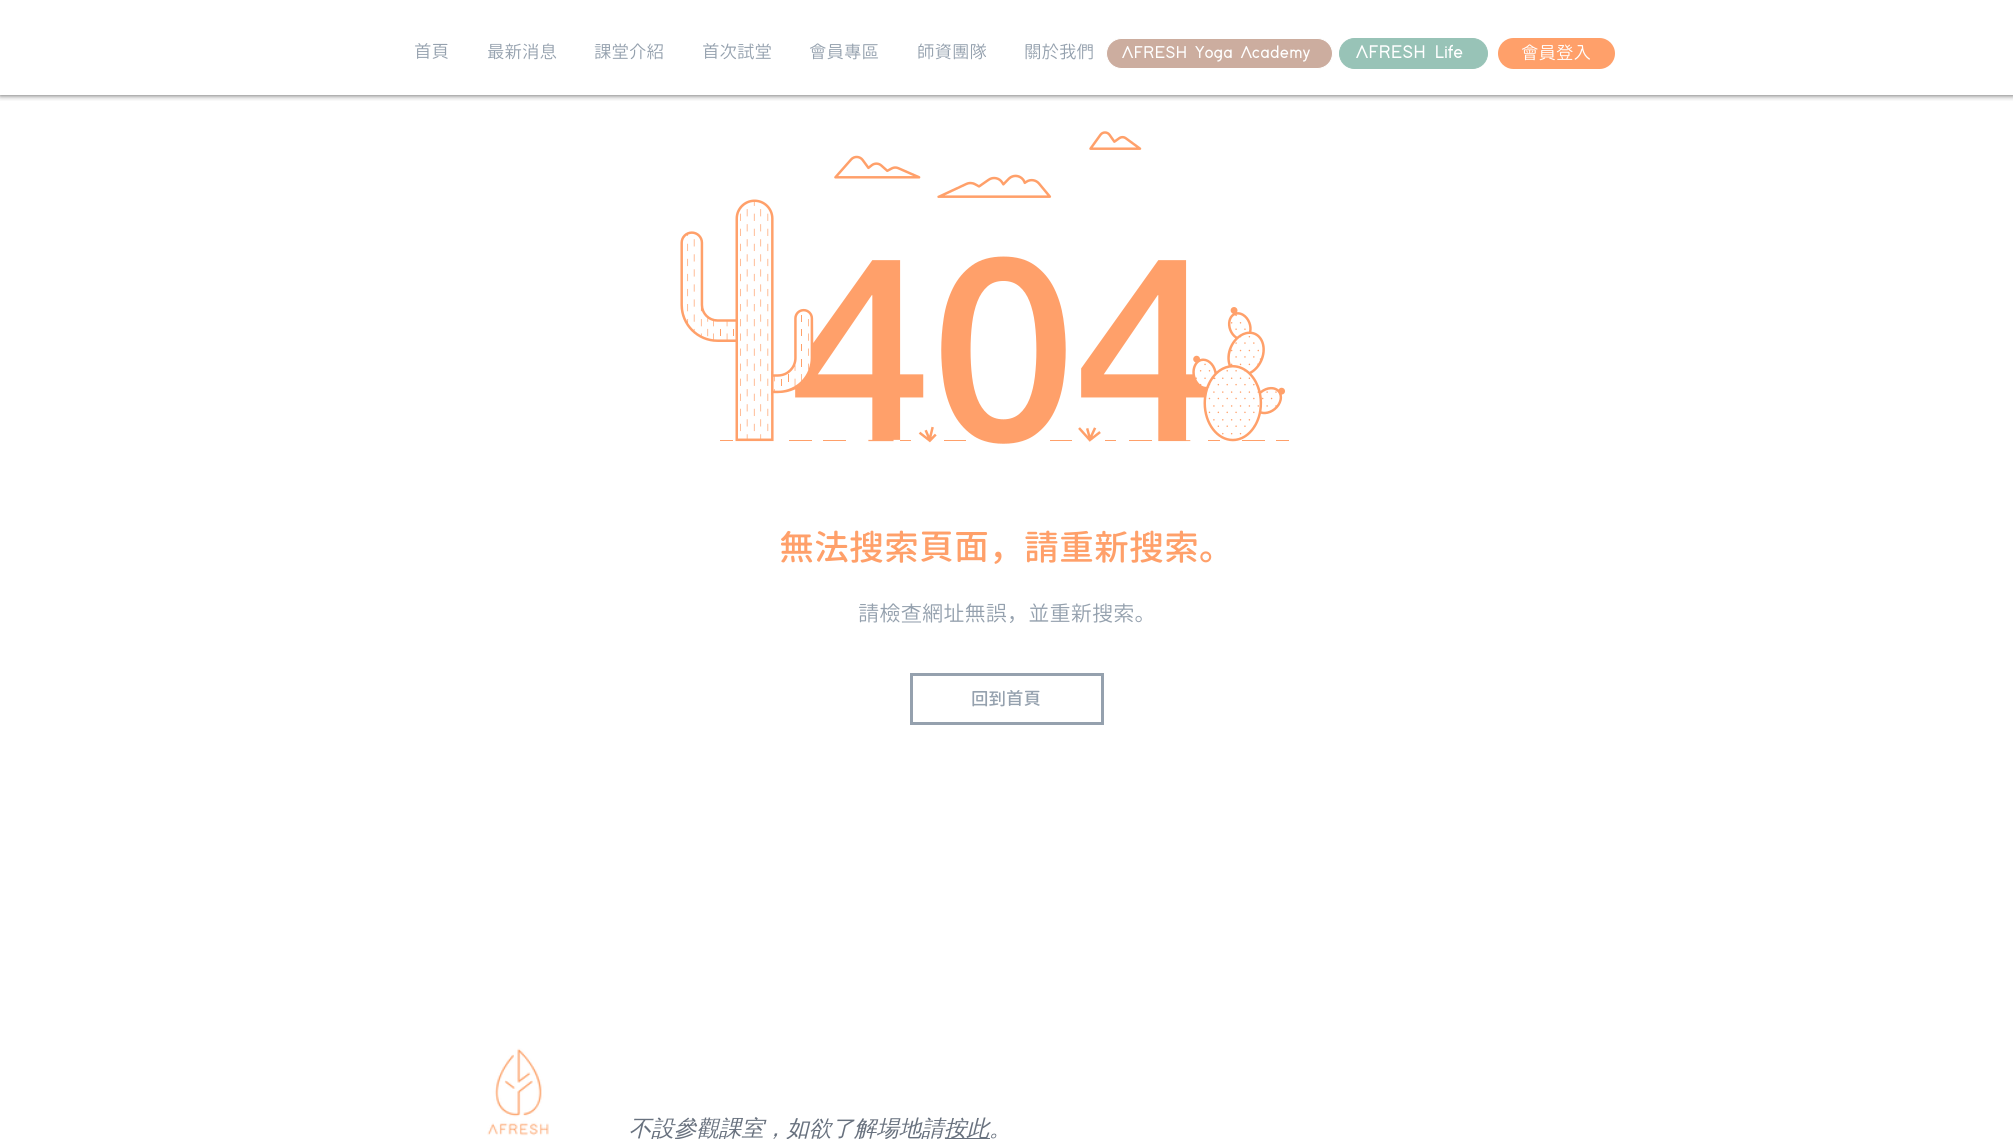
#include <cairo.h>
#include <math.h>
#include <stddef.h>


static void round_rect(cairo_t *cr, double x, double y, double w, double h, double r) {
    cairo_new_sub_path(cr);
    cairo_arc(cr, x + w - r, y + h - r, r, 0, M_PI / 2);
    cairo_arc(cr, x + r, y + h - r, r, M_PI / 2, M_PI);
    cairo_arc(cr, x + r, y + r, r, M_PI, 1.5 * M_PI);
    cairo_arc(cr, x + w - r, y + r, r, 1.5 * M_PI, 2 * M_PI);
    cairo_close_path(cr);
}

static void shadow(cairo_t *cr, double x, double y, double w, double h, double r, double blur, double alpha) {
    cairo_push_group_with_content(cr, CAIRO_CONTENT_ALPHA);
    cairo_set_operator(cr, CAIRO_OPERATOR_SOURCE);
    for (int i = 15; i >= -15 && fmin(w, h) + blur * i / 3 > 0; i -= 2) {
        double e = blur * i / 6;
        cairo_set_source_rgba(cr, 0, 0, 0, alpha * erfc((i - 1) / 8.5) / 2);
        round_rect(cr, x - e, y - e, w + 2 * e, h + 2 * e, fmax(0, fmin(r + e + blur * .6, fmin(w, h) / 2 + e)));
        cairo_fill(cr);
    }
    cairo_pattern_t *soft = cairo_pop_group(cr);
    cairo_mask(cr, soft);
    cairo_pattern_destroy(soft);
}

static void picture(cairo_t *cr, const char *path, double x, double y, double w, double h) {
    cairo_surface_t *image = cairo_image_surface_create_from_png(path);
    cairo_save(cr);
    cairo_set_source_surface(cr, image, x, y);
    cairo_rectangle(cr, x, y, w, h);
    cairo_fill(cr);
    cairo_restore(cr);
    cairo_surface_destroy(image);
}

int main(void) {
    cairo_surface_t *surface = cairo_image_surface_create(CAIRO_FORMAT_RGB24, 2013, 1139);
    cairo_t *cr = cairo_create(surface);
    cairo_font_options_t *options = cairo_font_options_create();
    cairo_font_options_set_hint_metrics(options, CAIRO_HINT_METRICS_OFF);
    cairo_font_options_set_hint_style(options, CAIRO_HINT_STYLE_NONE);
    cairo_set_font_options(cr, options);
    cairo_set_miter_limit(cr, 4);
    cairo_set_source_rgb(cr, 1, 1, 1);
    cairo_paint(cr);
    cairo_save(cr);
    cairo_rectangle(cr, 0, 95, 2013, 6);
    cairo_clip(cr);
    cairo_set_source_rgb(cr, 0, 0, 0);
    shadow(cr, 0, 0, 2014, 95, 0, 3, 0.7);
    cairo_restore(cr);
    cairo_select_font_face(cr, "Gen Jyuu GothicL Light", CAIRO_FONT_SLANT_NORMAL, CAIRO_FONT_WEIGHT_NORMAL);
    cairo_set_font_size(cr, 17.5);
    cairo_set_source_rgb(cr, 0.584, 0.631, 0.682);
    cairo_move_to(cr, 414, 58);
    cairo_show_text(cr, "首頁");
    cairo_move_to(cr, 487, 58);
    cairo_show_text(cr, "最新消息");
    cairo_move_to(cr, 594, 58);
    cairo_show_text(cr, "課堂介紹");
    cairo_move_to(cr, 702, 58);
    cairo_show_text(cr, "首次試堂");
    cairo_move_to(cr, 809, 58);
    cairo_show_text(cr, "會員專區");
    cairo_move_to(cr, 917, 58);
    cairo_show_text(cr, "師資團隊");
    cairo_move_to(cr, 1024, 58);
    cairo_show_text(cr, "關於我們");
    cairo_set_source_rgb(cr, 0.8, 0.678, 0.624);
    round_rect(cr, 1106.5, 38.5, 226, 30, 15);
    cairo_fill_preserve(cr);
    cairo_set_source_rgb(cr, 1, 1, 1);
    cairo_set_line_width(cr, 1);
    cairo_stroke(cr);
    cairo_select_font_face(cr, "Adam", CAIRO_FONT_SLANT_NORMAL, CAIRO_FONT_WEIGHT_BOLD);
    cairo_move_to(cr, 1122, 58);
    cairo_show_text(cr, "AFRESH Yoga Academy");
    cairo_set_source_rgb(cr, 0.596, 0.765, 0.718);
    round_rect(cr, 1339.5, 38.5, 148, 30, 15);
    cairo_fill_preserve(cr);
    cairo_stroke(cr);
    cairo_set_font_size(cr, 18.75);
    cairo_set_source_rgb(cr, 1, 1, 1);
    cairo_move_to(cr, 1356, 58);
    cairo_show_text(cr, "AFRESH Life");
    cairo_set_source_rgb(cr, 1, 0.627, 0.416);
    round_rect(cr, 1498, 38, 117, 31, 15.5);
    cairo_fill(cr);
    cairo_select_font_face(cr, "Gen Jyuu GothicL Light", CAIRO_FONT_SLANT_NORMAL, CAIRO_FONT_WEIGHT_NORMAL);
    cairo_set_font_size(cr, 17.5);
    cairo_set_source_rgb(cr, 1, 1, 1);
    cairo_move_to(cr, 1521, 59);
    cairo_show_text(cr, "會員登入");
    picture(cr, "img1.png", 680, 131, 609, 313);
    cairo_select_font_face(cr, "Gen Jyuu GothicL Medium", CAIRO_FONT_SLANT_NORMAL, CAIRO_FONT_WEIGHT_NORMAL);
    cairo_set_font_size(cr, 35);
    cairo_set_source_rgb(cr, 1, 0.627, 0.416);
    cairo_move_to(cr, 779, 560);
    cairo_show_text(cr, "無法搜索頁面，請重新搜索。");
    cairo_select_font_face(cr, "Gen Jyuu GothicL Light", CAIRO_FONT_SLANT_NORMAL, CAIRO_FONT_WEIGHT_NORMAL);
    cairo_set_font_size(cr, 21.25);
    cairo_set_source_rgb(cr, 0.584, 0.631, 0.682);
    cairo_move_to(cr, 858, 621);
    cairo_show_text(cr, "請檢");
    cairo_select_font_face(cr, "WenQuanYi Zen Hei Medium", CAIRO_FONT_SLANT_NORMAL, CAIRO_FONT_WEIGHT_NORMAL);
    cairo_move_to(cr, 901, 621);
    cairo_show_text(cr, "查");
    cairo_select_font_face(cr, "Gen Jyuu GothicL Light", CAIRO_FONT_SLANT_NORMAL, CAIRO_FONT_WEIGHT_NORMAL);
    cairo_move_to(cr, 922, 621);
    cairo_show_text(cr, "網址無誤，並重新搜索。");
    cairo_rectangle(cr, 911.5, 674.5, 191, 49);
    cairo_set_line_width(cr, 3);
    cairo_stroke(cr);
    cairo_select_font_face(cr, "Gen Jyuu GothicL Medium", CAIRO_FONT_SLANT_NORMAL, CAIRO_FONT_WEIGHT_NORMAL);
    cairo_set_font_size(cr, 17.5);
    cairo_move_to(cr, 971, 705);
    cairo_show_text(cr, "回到首頁");
    picture(cr, "img2.png", 487, 1048, 62, 88);
    cairo_select_font_face(cr, "WenQuanYi Zen Hei Medium", CAIRO_FONT_SLANT_ITALIC, CAIRO_FONT_WEIGHT_NORMAL);
    cairo_set_font_size(cr, 22.5);
    cairo_set_source_rgb(cr, 0.408, 0.443, 0.494);
    cairo_move_to(cr, 629, 1136);
    cairo_show_text(cr, "不設參觀課室，如欲了解場地請");
    cairo_rectangle(cr, 945, 1138, 45, 1);
    cairo_fill(cr);
    cairo_move_to(cr, 944, 1136);
    cairo_show_text(cr, "按此。");
    cairo_surface_write_to_png(surface, "page.png");
    cairo_font_options_destroy(options);
    cairo_destroy(cr);
    cairo_surface_destroy(surface);
    return 0;
}
